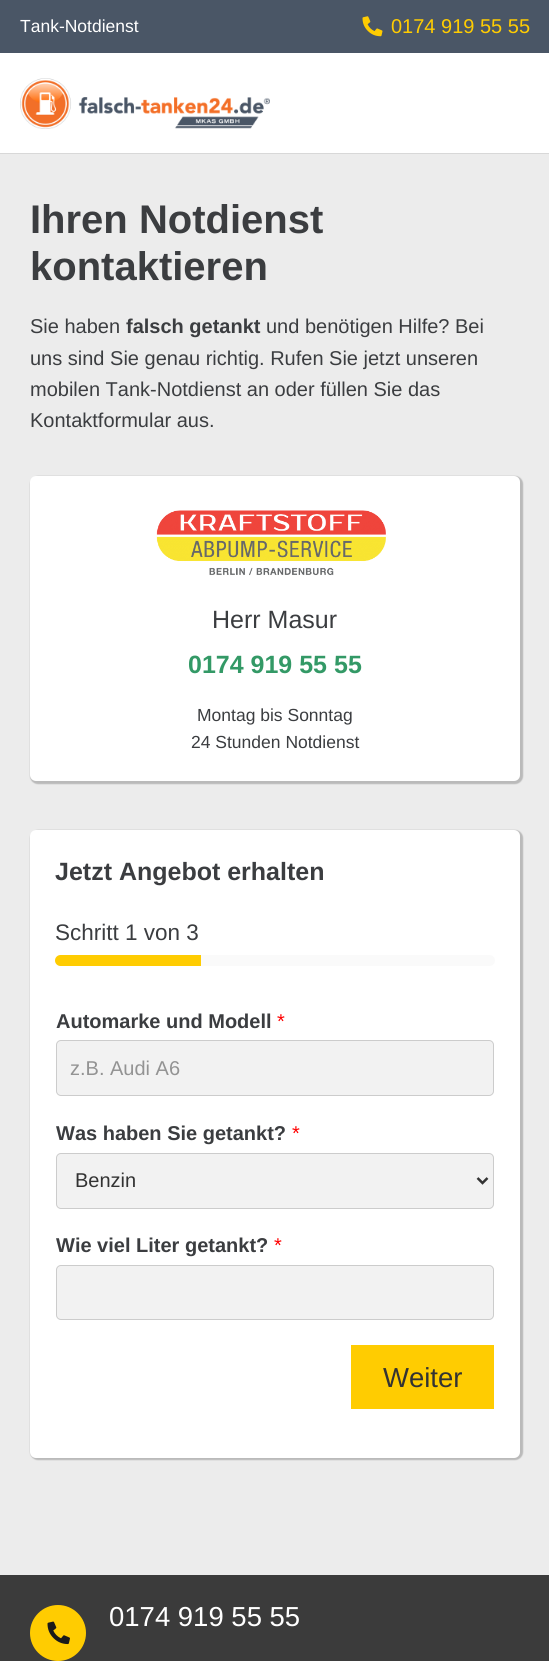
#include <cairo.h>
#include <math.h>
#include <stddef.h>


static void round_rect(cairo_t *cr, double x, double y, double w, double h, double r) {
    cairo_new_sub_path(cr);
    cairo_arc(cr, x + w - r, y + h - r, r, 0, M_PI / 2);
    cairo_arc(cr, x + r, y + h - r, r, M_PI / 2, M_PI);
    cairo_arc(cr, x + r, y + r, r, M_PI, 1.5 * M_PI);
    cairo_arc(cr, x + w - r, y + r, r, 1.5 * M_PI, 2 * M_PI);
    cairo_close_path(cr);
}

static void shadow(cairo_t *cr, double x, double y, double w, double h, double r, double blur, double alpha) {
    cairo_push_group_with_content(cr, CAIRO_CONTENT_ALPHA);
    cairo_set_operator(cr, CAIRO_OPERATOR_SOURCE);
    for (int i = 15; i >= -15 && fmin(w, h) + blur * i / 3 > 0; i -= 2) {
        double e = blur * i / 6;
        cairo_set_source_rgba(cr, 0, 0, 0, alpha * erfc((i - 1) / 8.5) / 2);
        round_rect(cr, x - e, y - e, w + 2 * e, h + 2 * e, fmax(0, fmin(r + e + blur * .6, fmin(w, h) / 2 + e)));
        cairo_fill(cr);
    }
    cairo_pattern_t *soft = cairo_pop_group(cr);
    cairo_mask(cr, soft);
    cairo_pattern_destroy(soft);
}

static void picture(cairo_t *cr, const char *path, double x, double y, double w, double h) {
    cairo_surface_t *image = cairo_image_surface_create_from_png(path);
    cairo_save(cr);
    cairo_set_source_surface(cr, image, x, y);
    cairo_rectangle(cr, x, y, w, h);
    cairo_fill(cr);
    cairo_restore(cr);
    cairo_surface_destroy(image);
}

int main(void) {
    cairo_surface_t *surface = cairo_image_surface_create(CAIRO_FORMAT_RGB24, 549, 1661);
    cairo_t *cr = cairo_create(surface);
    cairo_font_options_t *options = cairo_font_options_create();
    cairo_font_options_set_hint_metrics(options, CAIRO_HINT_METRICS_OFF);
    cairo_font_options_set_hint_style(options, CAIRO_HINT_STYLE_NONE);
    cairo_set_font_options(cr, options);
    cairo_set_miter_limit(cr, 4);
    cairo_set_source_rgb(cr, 0.922, 0.922, 0.922);
    cairo_paint(cr);
    cairo_set_source_rgb(cr, 0.29, 0.337, 0.4);
    cairo_rectangle(cr, 0, 0, 549, 53);
    cairo_fill(cr);
    cairo_select_font_face(cr, "Liberation Sans", CAIRO_FONT_SLANT_NORMAL, CAIRO_FONT_WEIGHT_NORMAL);
    cairo_set_font_size(cr, 17.5);
    cairo_set_source_rgb(cr, 1, 1, 1);
    cairo_move_to(cr, 20, 32);
    cairo_show_text(cr, "Tank-Notdienst");
    picture(cr, "img1.png", 362, 16, 21, 21);
    cairo_set_font_size(cr, 20);
    cairo_set_source_rgb(cr, 1, 0.8, 0.004);
    cairo_move_to(cr, 391, 33);
    cairo_show_text(cr, "0174 919 55 55");
    cairo_set_source_rgb(cr, 1, 1, 1);
    cairo_rectangle(cr, 0, 53, 549, 100);
    cairo_fill(cr);
    picture(cr, "img2.png", 20, 78, 250, 51);
    cairo_set_source_rgb(cr, 0.847, 0.847, 0.847);
    cairo_rectangle(cr, 0, 153, 549, 1);
    cairo_fill(cr);
    cairo_select_font_face(cr, "Liberation Sans", CAIRO_FONT_SLANT_NORMAL, CAIRO_FONT_WEIGHT_BOLD);
    cairo_set_font_size(cr, 40);
    cairo_set_source_rgb(cr, 0.231, 0.239, 0.251);
    cairo_move_to(cr, 30, 233);
    cairo_show_text(cr, "Ihren Notdienst");
    cairo_move_to(cr, 30, 280);
    cairo_show_text(cr, "kontaktieren");
    cairo_select_font_face(cr, "Liberation Sans", CAIRO_FONT_SLANT_NORMAL, CAIRO_FONT_WEIGHT_NORMAL);
    cairo_set_font_size(cr, 20);
    cairo_move_to(cr, 30, 333);
    cairo_show_text(cr, "Sie haben");
    cairo_select_font_face(cr, "Liberation Sans", CAIRO_FONT_SLANT_NORMAL, CAIRO_FONT_WEIGHT_BOLD);
    cairo_move_to(cr, 126, 333);
    cairo_show_text(cr, "falsch getankt");
    cairo_select_font_face(cr, "Liberation Sans", CAIRO_FONT_SLANT_NORMAL, CAIRO_FONT_WEIGHT_NORMAL);
    cairo_move_to(cr, 266, 333);
    cairo_show_text(cr, "und benötigen Hilfe? Bei");
    cairo_move_to(cr, 30, 365);
    cairo_show_text(cr, "uns sind Sie genau richtig. Rufen Sie jetzt unseren");
    cairo_move_to(cr, 30, 396);
    cairo_show_text(cr, "mobilen Tank-Notdienst an oder füllen Sie das");
    cairo_move_to(cr, 30, 427);
    cairo_show_text(cr, "Kontaktformular aus.");
    cairo_set_source_rgb(cr, 0.729, 0.729, 0.729);
    shadow(cr, 30, 476, 493, 308, 8, 0.5, 1);
    cairo_set_source_rgb(cr, 1, 1, 1);
    round_rect(cr, 30, 476, 490, 305, 6);
    cairo_fill(cr);
    picture(cr, "img3.png", 156, 510, 230, 66);
    cairo_set_font_size(cr, 25);
    cairo_set_source_rgb(cr, 0.231, 0.239, 0.251);
    cairo_move_to(cr, 212, 628);
    cairo_show_text(cr, "Herr Masur");
    cairo_select_font_face(cr, "Liberation Sans", CAIRO_FONT_SLANT_NORMAL, CAIRO_FONT_WEIGHT_BOLD);
    cairo_set_source_rgb(cr, 0.2, 0.6, 0.4);
    cairo_move_to(cr, 188, 673);
    cairo_show_text(cr, "0174 919 55 55");
    cairo_select_font_face(cr, "Liberation Sans", CAIRO_FONT_SLANT_NORMAL, CAIRO_FONT_WEIGHT_NORMAL);
    cairo_set_font_size(cr, 17.5);
    cairo_set_source_rgb(cr, 0.231, 0.239, 0.251);
    cairo_move_to(cr, 197, 721);
    cairo_show_text(cr, "Montag bis Sonntag");
    cairo_move_to(cr, 191, 748);
    cairo_show_text(cr, "24 Stunden Notdienst");
    cairo_set_source_rgb(cr, 0.729, 0.729, 0.729);
    shadow(cr, 30, 830, 493, 630, 8, 0.5, 1);
    cairo_set_source_rgb(cr, 1, 1, 1);
    round_rect(cr, 30, 830, 490, 628, 6);
    cairo_fill(cr);
    cairo_select_font_face(cr, "Liberation Sans", CAIRO_FONT_SLANT_NORMAL, CAIRO_FONT_WEIGHT_BOLD);
    cairo_set_font_size(cr, 25);
    cairo_set_source_rgb(cr, 0.231, 0.239, 0.251);
    cairo_move_to(cr, 55, 880);
    cairo_show_text(cr, "Jetzt Angebot erhalten");
    cairo_select_font_face(cr, "Liberation Sans", CAIRO_FONT_SLANT_NORMAL, CAIRO_FONT_WEIGHT_NORMAL);
    cairo_set_font_size(cr, 22.5);
    cairo_move_to(cr, 55, 940);
    cairo_show_text(cr, "Schritt 1 von 3");
    cairo_set_source_rgb(cr, 0.98, 0.98, 0.98);
    round_rect(cr, 55, 955, 440, 11, 5.5);
    cairo_fill(cr);
    cairo_set_source_rgb(cr, 1, 0.8, 0.004);
    cairo_new_path(cr);
    cairo_move_to(cr, 60.5, 955);
    cairo_line_to(cr, 201, 955);
    cairo_line_to(cr, 201, 966);
    cairo_line_to(cr, 60.5, 966);
    cairo_curve_to(cr, 57.5, 966, 55, 963.5, 55, 960.5);
    cairo_curve_to(cr, 55, 957.5, 57.5, 955, 60.5, 955);
    cairo_close_path(cr);
    cairo_fill(cr);
    cairo_select_font_face(cr, "Liberation Sans", CAIRO_FONT_SLANT_NORMAL, CAIRO_FONT_WEIGHT_BOLD);
    cairo_set_font_size(cr, 20);
    cairo_set_source_rgb(cr, 0.231, 0.239, 0.251);
    cairo_move_to(cr, 56, 1028);
    cairo_show_text(cr, "Automarke und Modell");
    cairo_select_font_face(cr, "Liberation Sans", CAIRO_FONT_SLANT_NORMAL, CAIRO_FONT_WEIGHT_NORMAL);
    cairo_set_source_rgb(cr, 1, 0, 0);
    cairo_move_to(cr, 277, 1028);
    cairo_show_text(cr, "*");
    cairo_set_source_rgb(cr, 0.949, 0.949, 0.949);
    round_rect(cr, 56.5, 1040.5, 437, 55, 4.5);
    cairo_fill_preserve(cr);
    cairo_set_source_rgb(cr, 0.8, 0.8, 0.8);
    cairo_set_line_width(cr, 1);
    cairo_stroke(cr);
    cairo_set_source_rgb(cr, 0.576, 0.576, 0.576);
    cairo_move_to(cr, 70, 1075);
    cairo_show_text(cr, "z.B. Audi A6");
    cairo_select_font_face(cr, "Liberation Sans", CAIRO_FONT_SLANT_NORMAL, CAIRO_FONT_WEIGHT_BOLD);
    cairo_set_source_rgb(cr, 0.231, 0.239, 0.251);
    cairo_move_to(cr, 56, 1140);
    cairo_show_text(cr, "Was haben Sie getankt?");
    cairo_select_font_face(cr, "Liberation Sans", CAIRO_FONT_SLANT_NORMAL, CAIRO_FONT_WEIGHT_NORMAL);
    cairo_set_source_rgb(cr, 1, 0, 0);
    cairo_move_to(cr, 292, 1140);
    cairo_show_text(cr, "*");
    cairo_set_source_rgb(cr, 0.949, 0.949, 0.949);
    round_rect(cr, 56.5, 1153.5, 437, 55, 4.5);
    cairo_fill_preserve(cr);
    cairo_set_source_rgb(cr, 0.8, 0.8, 0.8);
    cairo_stroke(cr);
    cairo_new_path(cr);
    cairo_move_to(cr, 477.5, 1178);
    cairo_line_to(cr, 482.5, 1183);
    cairo_line_to(cr, 487.5, 1178);
    cairo_set_source_rgb(cr, 0.2, 0.2, 0.2);
    cairo_set_line_width(cr, 2.5);
    cairo_stroke(cr);
    cairo_move_to(cr, 75, 1187);
    cairo_show_text(cr, "Benzin");
    cairo_select_font_face(cr, "Liberation Sans", CAIRO_FONT_SLANT_NORMAL, CAIRO_FONT_WEIGHT_BOLD);
    cairo_set_source_rgb(cr, 0.231, 0.239, 0.251);
    cairo_move_to(cr, 56, 1252);
    cairo_show_text(cr, "Wie viel Liter getankt?");
    cairo_select_font_face(cr, "Liberation Sans", CAIRO_FONT_SLANT_NORMAL, CAIRO_FONT_WEIGHT_NORMAL);
    cairo_set_source_rgb(cr, 1, 0, 0);
    cairo_move_to(cr, 274, 1252);
    cairo_show_text(cr, "*");
    cairo_set_source_rgb(cr, 0.949, 0.949, 0.949);
    round_rect(cr, 56.5, 1265.5, 437, 54, 4.5);
    cairo_fill_preserve(cr);
    cairo_set_source_rgb(cr, 0.8, 0.8, 0.8);
    cairo_set_line_width(cr, 1);
    cairo_stroke(cr);
    cairo_set_source_rgb(cr, 1, 0.8, 0.004);
    cairo_rectangle(cr, 351, 1345, 143, 64);
    cairo_fill(cr);
    cairo_set_font_size(cr, 27.5);
    cairo_set_source_rgb(cr, 0.2, 0.2, 0.2);
    cairo_move_to(cr, 383, 1387);
    cairo_show_text(cr, "Weiter");
    cairo_set_source_rgb(cr, 0.231, 0.231, 0.231);
    cairo_rectangle(cr, 0, 1575, 549, 86);
    cairo_fill(cr);
    cairo_set_source_rgb(cr, 1, 0.8, 0.004);
    cairo_arc(cr, 58, 1633, 28, 0, 2 * M_PI);
    cairo_fill(cr);
    picture(cr, "img4.png", 47, 1621, 23, 24);
    cairo_set_source_rgb(cr, 1, 1, 1);
    cairo_move_to(cr, 109, 1626);
    cairo_show_text(cr, "0174 919 55 55");
    cairo_surface_write_to_png(surface, "page.png");
    cairo_font_options_destroy(options);
    cairo_destroy(cr);
    cairo_surface_destroy(surface);
    return 0;
}
